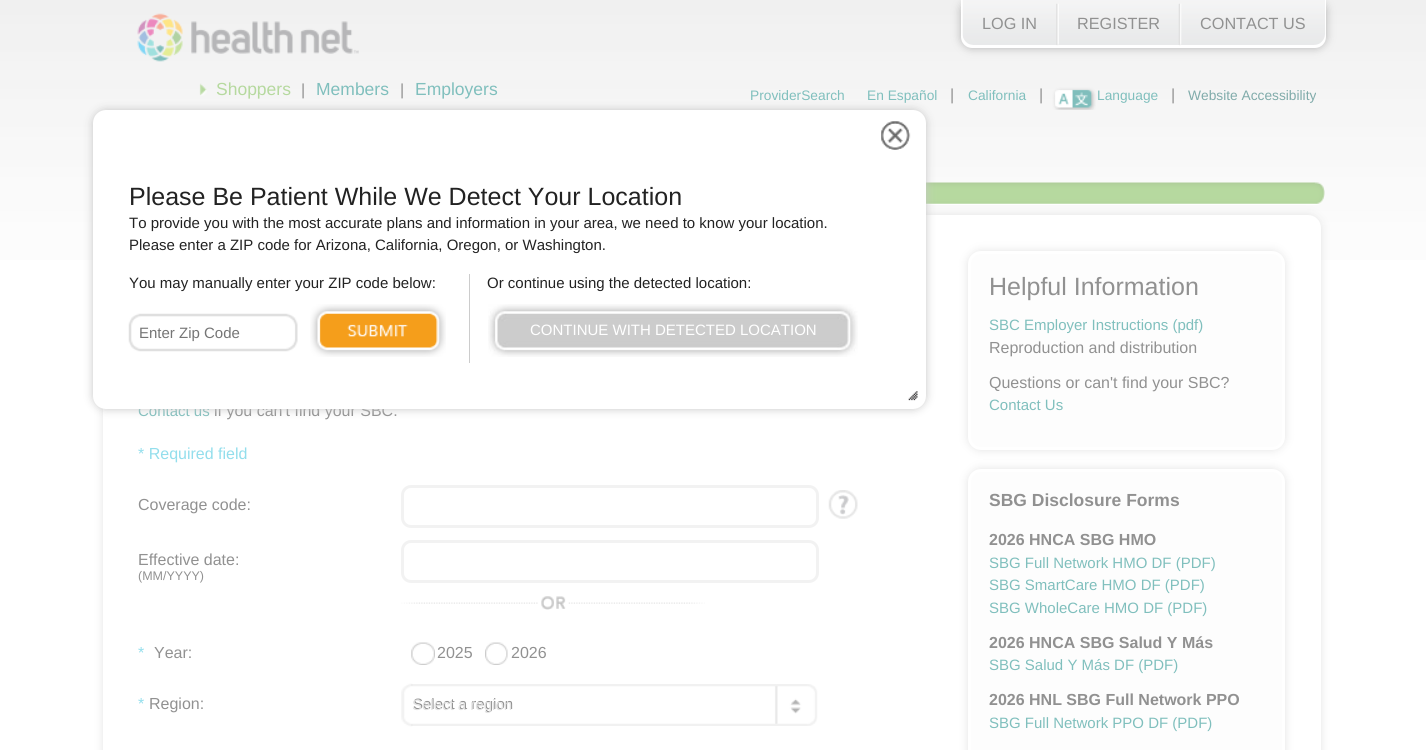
#include <cairo.h>
#include <math.h>
#include <stddef.h>


static void round_rect(cairo_t *cr, double x, double y, double w, double h, double r) {
    cairo_new_sub_path(cr);
    cairo_arc(cr, x + w - r, y + h - r, r, 0, M_PI / 2);
    cairo_arc(cr, x + r, y + h - r, r, M_PI / 2, M_PI);
    cairo_arc(cr, x + r, y + r, r, M_PI, 1.5 * M_PI);
    cairo_arc(cr, x + w - r, y + r, r, 1.5 * M_PI, 2 * M_PI);
    cairo_close_path(cr);
}

static void shadow(cairo_t *cr, double x, double y, double w, double h, double r, double blur, double alpha) {
    cairo_push_group_with_content(cr, CAIRO_CONTENT_ALPHA);
    cairo_set_operator(cr, CAIRO_OPERATOR_SOURCE);
    for (int i = 15; i >= -15 && fmin(w, h) + blur * i / 3 > 0; i -= 2) {
        double e = blur * i / 6;
        cairo_set_source_rgba(cr, 0, 0, 0, alpha * erfc((i - 1) / 8.5) / 2);
        round_rect(cr, x - e, y - e, w + 2 * e, h + 2 * e, fmax(0, fmin(r + e + blur * .6, fmin(w, h) / 2 + e)));
        cairo_fill(cr);
    }
    cairo_pattern_t *soft = cairo_pop_group(cr);
    cairo_mask(cr, soft);
    cairo_pattern_destroy(soft);
}

static void picture(cairo_t *cr, const char *path, double x, double y, double w, double h) {
    cairo_surface_t *image = cairo_image_surface_create_from_png(path);
    cairo_save(cr);
    cairo_set_source_surface(cr, image, x, y);
    cairo_rectangle(cr, x, y, w, h);
    cairo_fill(cr);
    cairo_restore(cr);
    cairo_surface_destroy(image);
}

int main(void) {
    cairo_surface_t *surface = cairo_image_surface_create(CAIRO_FORMAT_RGB24, 1426, 750);
    cairo_t *cr = cairo_create(surface);
    cairo_font_options_t *options = cairo_font_options_create();
    cairo_font_options_set_hint_metrics(options, CAIRO_HINT_METRICS_OFF);
    cairo_font_options_set_hint_style(options, CAIRO_HINT_STYLE_NONE);
    cairo_set_font_options(cr, options);
    cairo_set_miter_limit(cr, 4);
    cairo_set_source_rgb(cr, 1, 1, 1);
    cairo_paint(cr);
    picture(cr, "img1.png", 0, 0, 1426, 260);
    picture(cr, "img2.png", 137, 13, 222, 49);
    cairo_set_source_rgb(cr, 0.702, 0.702, 0.702);
    shadow(cr, 961, 0, 365, 48, 11, 4.5, 1);
    cairo_set_source_rgb(cr, 1, 1, 1);
    cairo_new_path(cr);
    cairo_move_to(cr, 961, 0);
    cairo_line_to(cr, 1326, 0);
    cairo_line_to(cr, 1326, 37);
    cairo_curve_to(cr, 1326, 43, 1321, 48, 1315, 48);
    cairo_line_to(cr, 972, 48);
    cairo_curve_to(cr, 966, 48, 961, 43, 961, 37);
    cairo_close_path(cr);
    cairo_fill(cr);
    picture(cr, "img3.png", 962, 0, 363, 45);
    cairo_select_font_face(cr, "Liberation Sans", CAIRO_FONT_SLANT_NORMAL, CAIRO_FONT_WEIGHT_NORMAL);
    cairo_set_font_size(cr, 16.25);
    cairo_set_source_rgb(cr, 0.569, 0.569, 0.569);
    cairo_move_to(cr, 982, 29);
    cairo_show_text(cr, "LOG IN");
    picture(cr, "img4.png", 1056, 3, 3, 43);
    cairo_move_to(cr, 1077, 29);
    cairo_show_text(cr, "REGISTER");
    picture(cr, "img5.png", 1178, 3, 4, 43);
    cairo_move_to(cr, 1200, 29);
    cairo_show_text(cr, "CONTACT US");
    picture(cr, "img6.png", 199, 83, 8, 13);
    cairo_set_font_size(cr, 17.5);
    cairo_set_source_rgb(cr, 0.714, 0.851, 0.624);
    cairo_move_to(cr, 216, 95);
    cairo_show_text(cr, "Shoppers");
    cairo_set_font_size(cr, 16);
    cairo_set_source_rgb(cr, 0.569, 0.569, 0.569);
    cairo_move_to(cr, 301, 95);
    cairo_show_text(cr, "|");
    cairo_set_font_size(cr, 17.5);
    cairo_set_source_rgb(cr, 0.502, 0.749, 0.741);
    cairo_move_to(cr, 316, 95);
    cairo_show_text(cr, "Members");
    cairo_set_font_size(cr, 16);
    cairo_set_source_rgb(cr, 0.569, 0.569, 0.569);
    cairo_move_to(cr, 400, 95);
    cairo_show_text(cr, "|");
    cairo_set_font_size(cr, 17.5);
    cairo_set_source_rgb(cr, 0.502, 0.749, 0.741);
    cairo_move_to(cr, 415, 95);
    cairo_show_text(cr, "Employers");
    cairo_set_font_size(cr, 13.75);
    cairo_move_to(cr, 750, 100);
    cairo_show_text(cr, "ProviderSearch");
    cairo_move_to(cr, 867, 100);
    cairo_show_text(cr, "En Español");
    cairo_set_font_size(cr, 16);
    cairo_set_source_rgb(cr, 0.569, 0.569, 0.569);
    cairo_move_to(cr, 950, 100);
    cairo_show_text(cr, "|");
    cairo_set_font_size(cr, 13.75);
    cairo_set_source_rgb(cr, 0.502, 0.749, 0.741);
    cairo_move_to(cr, 968, 100);
    cairo_show_text(cr, "California");
    cairo_set_font_size(cr, 16);
    cairo_set_source_rgb(cr, 0.569, 0.569, 0.569);
    cairo_move_to(cr, 1039, 100);
    cairo_show_text(cr, "|");
    picture(cr, "img7.png", 1052, 87, 44, 23);
    cairo_set_font_size(cr, 13.75);
    cairo_set_source_rgb(cr, 0.502, 0.749, 0.741);
    cairo_move_to(cr, 1097, 100);
    cairo_show_text(cr, "Language");
    cairo_set_font_size(cr, 16);
    cairo_set_source_rgb(cr, 0.569, 0.569, 0.569);
    cairo_move_to(cr, 1171, 100);
    cairo_show_text(cr, "|");
    cairo_set_font_size(cr, 13.75);
    cairo_set_source_rgb(cr, 0.502, 0.671, 0.667);
    cairo_move_to(cr, 1188, 100);
    cairo_show_text(cr, "Website Accessibility");
    picture(cr, "img8.png", 926, 182, 399, 23);
    cairo_set_source_rgb(cr, 0.89, 0.89, 0.89);
    shadow(cr, 103, 215, 1218, 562, 13, 4.5, 1);
    cairo_set_source_rgb(cr, 1, 1, 1);
    round_rect(cr, 104.5, 216.5, 1215, 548, 11.5);
    cairo_fill_preserve(cr);
    cairo_set_line_width(cr, 3);
    cairo_stroke(cr);
    cairo_set_font_size(cr, 15);
    cairo_set_source_rgb(cr, 0.502, 0.749, 0.741);
    cairo_move_to(cr, 138, 416);
    cairo_show_text(cr, "Contact us");
    cairo_set_font_size(cr, 16);
    cairo_set_source_rgb(cr, 0.569, 0.569, 0.569);
    cairo_move_to(cr, 214, 416);
    cairo_show_text(cr, "if you can't find your SBC.");
    cairo_set_source_rgb(cr, 0.576, 0.871, 0.922);
    cairo_move_to(cr, 138, 459);
    cairo_show_text(cr, "* Required field");
    cairo_set_source_rgb(cr, 0.569, 0.569, 0.569);
    cairo_move_to(cr, 138, 510);
    cairo_show_text(cr, "Coverage code:");
    round_rect(cr, 402.5, 486.5, 415, 40, 8.5);
    cairo_set_source_rgb(cr, 0.949, 0.949, 0.949);
    cairo_stroke(cr);
    picture(cr, "img9.png", 828, 490, 30, 29);
    cairo_set_source_rgb(cr, 0.569, 0.569, 0.569);
    cairo_move_to(cr, 138, 565);
    cairo_show_text(cr, "Effective date:");
    cairo_set_font_size(cr, 12.5);
    cairo_move_to(cr, 138, 580);
    cairo_show_text(cr, "(MM/YYYY)");
    round_rect(cr, 402.5, 541.5, 415, 40, 8.5);
    cairo_set_source_rgb(cr, 0.949, 0.949, 0.949);
    cairo_stroke(cr);
    picture(cr, "img10.png", 401, 596, 304, 14);
    cairo_set_font_size(cr, 16);
    cairo_set_source_rgb(cr, 0.576, 0.871, 0.922);
    cairo_move_to(cr, 138, 658);
    cairo_show_text(cr, "*");
    cairo_set_source_rgb(cr, 0.569, 0.569, 0.569);
    cairo_move_to(cr, 154, 658);
    cairo_show_text(cr, "Year:");
    picture(cr, "img11.png", 411, 642, 24, 23);
    cairo_move_to(cr, 437, 658);
    cairo_show_text(cr, "2025");
    picture(cr, "img12.png", 485, 642, 23, 23);
    cairo_move_to(cr, 511, 658);
    cairo_show_text(cr, "2026");
    cairo_set_source_rgb(cr, 0.576, 0.871, 0.922);
    cairo_move_to(cr, 138, 709);
    cairo_show_text(cr, "*");
    cairo_set_source_rgb(cr, 0.569, 0.569, 0.569);
    cairo_move_to(cr, 149, 709);
    cairo_show_text(cr, "Region:");
    picture(cr, "img13.png", 401, 683, 12, 44);
    picture(cr, "img14.png", 411, 684, 407, 42);
    cairo_set_font_size(cr, 15);
    cairo_move_to(cr, 413, 709);
    cairo_show_text(cr, "Select a region");
    cairo_set_source_rgb(cr, 0.886, 0.886, 0.886);
    cairo_move_to(cr, 412, 710);
    cairo_show_text(cr, "Select a region");
    cairo_set_source_rgb(cr, 0.89, 0.89, 0.89);
    shadow(cr, 968, 251, 317, 199, 13, 4.5, 1);
    cairo_set_source_rgb(cr, 0.992, 0.992, 0.992);
    round_rect(cr, 969.5, 252.5, 314, 196, 11.5);
    cairo_fill_preserve(cr);
    cairo_set_source_rgb(cr, 1, 1, 1);
    cairo_stroke(cr);
    cairo_set_font_size(cr, 25);
    cairo_set_source_rgb(cr, 0.569, 0.569, 0.569);
    cairo_move_to(cr, 989, 295);
    cairo_show_text(cr, "Helpful Information");
    cairo_set_font_size(cr, 15);
    cairo_set_source_rgb(cr, 0.502, 0.749, 0.741);
    cairo_move_to(cr, 989, 330);
    cairo_show_text(cr, "SBC Employer Instructions (pdf)");
    cairo_set_font_size(cr, 16);
    cairo_set_source_rgb(cr, 0.569, 0.569, 0.569);
    cairo_move_to(cr, 989, 353);
    cairo_show_text(cr, "Reproduction and distribution");
    cairo_move_to(cr, 989, 388);
    cairo_show_text(cr, "Questions or can't find your SBC?");
    cairo_set_font_size(cr, 15);
    cairo_set_source_rgb(cr, 0.502, 0.749, 0.741);
    cairo_move_to(cr, 989, 410);
    cairo_show_text(cr, "Contact Us");
    cairo_set_source_rgb(cr, 0.89, 0.89, 0.89);
    shadow(cr, 968, 469, 317, 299, 13, 4.5, 1);
    cairo_set_source_rgb(cr, 0.992, 0.992, 0.992);
    round_rect(cr, 969.5, 470.5, 314, 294, 11.5);
    cairo_fill_preserve(cr);
    cairo_set_source_rgb(cr, 1, 1, 1);
    cairo_stroke(cr);
    cairo_select_font_face(cr, "Liberation Sans", CAIRO_FONT_SLANT_NORMAL, CAIRO_FONT_WEIGHT_BOLD);
    cairo_set_font_size(cr, 17.5);
    cairo_set_source_rgb(cr, 0.569, 0.569, 0.569);
    cairo_move_to(cr, 989, 506);
    cairo_show_text(cr, "SBG Disclosure Forms");
    cairo_set_font_size(cr, 16);
    cairo_move_to(cr, 989, 545);
    cairo_show_text(cr, "2026 HNCA SBG HMO");
    cairo_select_font_face(cr, "Liberation Sans", CAIRO_FONT_SLANT_NORMAL, CAIRO_FONT_WEIGHT_NORMAL);
    cairo_set_font_size(cr, 15);
    cairo_set_source_rgb(cr, 0.502, 0.749, 0.741);
    cairo_move_to(cr, 989, 568);
    cairo_show_text(cr, "SBG Full Network HMO DF (PDF)");
    cairo_move_to(cr, 989, 590);
    cairo_show_text(cr, "SBG SmartCare HMO DF (PDF)");
    cairo_move_to(cr, 989, 613);
    cairo_show_text(cr, "SBG WholeCare HMO DF (PDF)");
    cairo_select_font_face(cr, "Liberation Sans", CAIRO_FONT_SLANT_NORMAL, CAIRO_FONT_WEIGHT_BOLD);
    cairo_set_font_size(cr, 16);
    cairo_set_source_rgb(cr, 0.569, 0.569, 0.569);
    cairo_move_to(cr, 989, 648);
    cairo_show_text(cr, "2026 HNCA SBG Salud Y Más");
    cairo_select_font_face(cr, "Liberation Sans", CAIRO_FONT_SLANT_NORMAL, CAIRO_FONT_WEIGHT_NORMAL);
    cairo_set_font_size(cr, 15);
    cairo_set_source_rgb(cr, 0.502, 0.749, 0.741);
    cairo_move_to(cr, 989, 670);
    cairo_show_text(cr, "SBG Salud Y Más DF (PDF)");
    cairo_select_font_face(cr, "Liberation Sans", CAIRO_FONT_SLANT_NORMAL, CAIRO_FONT_WEIGHT_BOLD);
    cairo_set_font_size(cr, 16);
    cairo_set_source_rgb(cr, 0.569, 0.569, 0.569);
    cairo_move_to(cr, 989, 705);
    cairo_show_text(cr, "2026 HNL SBG Full Network PPO");
    cairo_select_font_face(cr, "Liberation Sans", CAIRO_FONT_SLANT_NORMAL, CAIRO_FONT_WEIGHT_NORMAL);
    cairo_set_font_size(cr, 15);
    cairo_set_source_rgb(cr, 0.502, 0.749, 0.741);
    cairo_move_to(cr, 989, 728);
    cairo_show_text(cr, "SBG Full Network PPO DF (PDF)");
    cairo_set_source_rgb(cr, 0.776, 0.776, 0.776);
    shadow(cr, 93, 110, 833, 299, 13, 4.5, 1);
    cairo_set_source_rgb(cr, 1, 1, 1);
    round_rect(cr, 94.5, 111.5, 830, 296, 11.5);
    cairo_fill_preserve(cr);
    cairo_stroke(cr);
    picture(cr, "img15.png", 881, 121, 30, 29);
    cairo_set_font_size(cr, 25);
    cairo_set_source_rgb(cr, 0.133, 0.133, 0.133);
    cairo_move_to(cr, 129, 205);
    cairo_show_text(cr, "Please Be Patient While We Detect Your Location");
    cairo_set_font_size(cr, 15);
    cairo_move_to(cr, 129, 228);
    cairo_show_text(cr, "To provide you with the most accurate plans and information in your area, we need to know your location.");
    cairo_move_to(cr, 129, 250);
    cairo_show_text(cr, "Please enter a ZIP code for Arizona, California, Oregon, or Washington.");
    cairo_set_source_rgb(cr, 0.8, 0.8, 0.8);
    cairo_rectangle(cr, 469, 274, 1, 89);
    cairo_fill(cr);
    cairo_set_source_rgb(cr, 0.133, 0.133, 0.133);
    cairo_move_to(cr, 129, 288);
    cairo_show_text(cr, "You may manually enter your ZIP code below:");
    picture(cr, "img16.png", 128, 313, 170, 39);
    cairo_set_source_rgb(cr, 0.459, 0.459, 0.459);
    cairo_move_to(cr, 139, 338);
    cairo_show_text(cr, "Enter Zip Code");
    picture(cr, "img17.png", 310, 304, 136, 53);
    cairo_set_source_rgb(cr, 0.133, 0.133, 0.133);
    cairo_move_to(cr, 487, 288);
    cairo_show_text(cr, "Or continue using the detected location:");
    picture(cr, "img18.png", 488, 304, 370, 53);
    cairo_set_source_rgb(cr, 1, 1, 1);
    cairo_move_to(cr, 530, 335);
    cairo_show_text(cr, "CONTINUE WITH DETECTED LOCATION");
    picture(cr, "img19.png", 908, 391, 10, 10);
    cairo_surface_write_to_png(surface, "page.png");
    cairo_font_options_destroy(options);
    cairo_destroy(cr);
    cairo_surface_destroy(surface);
    return 0;
}
